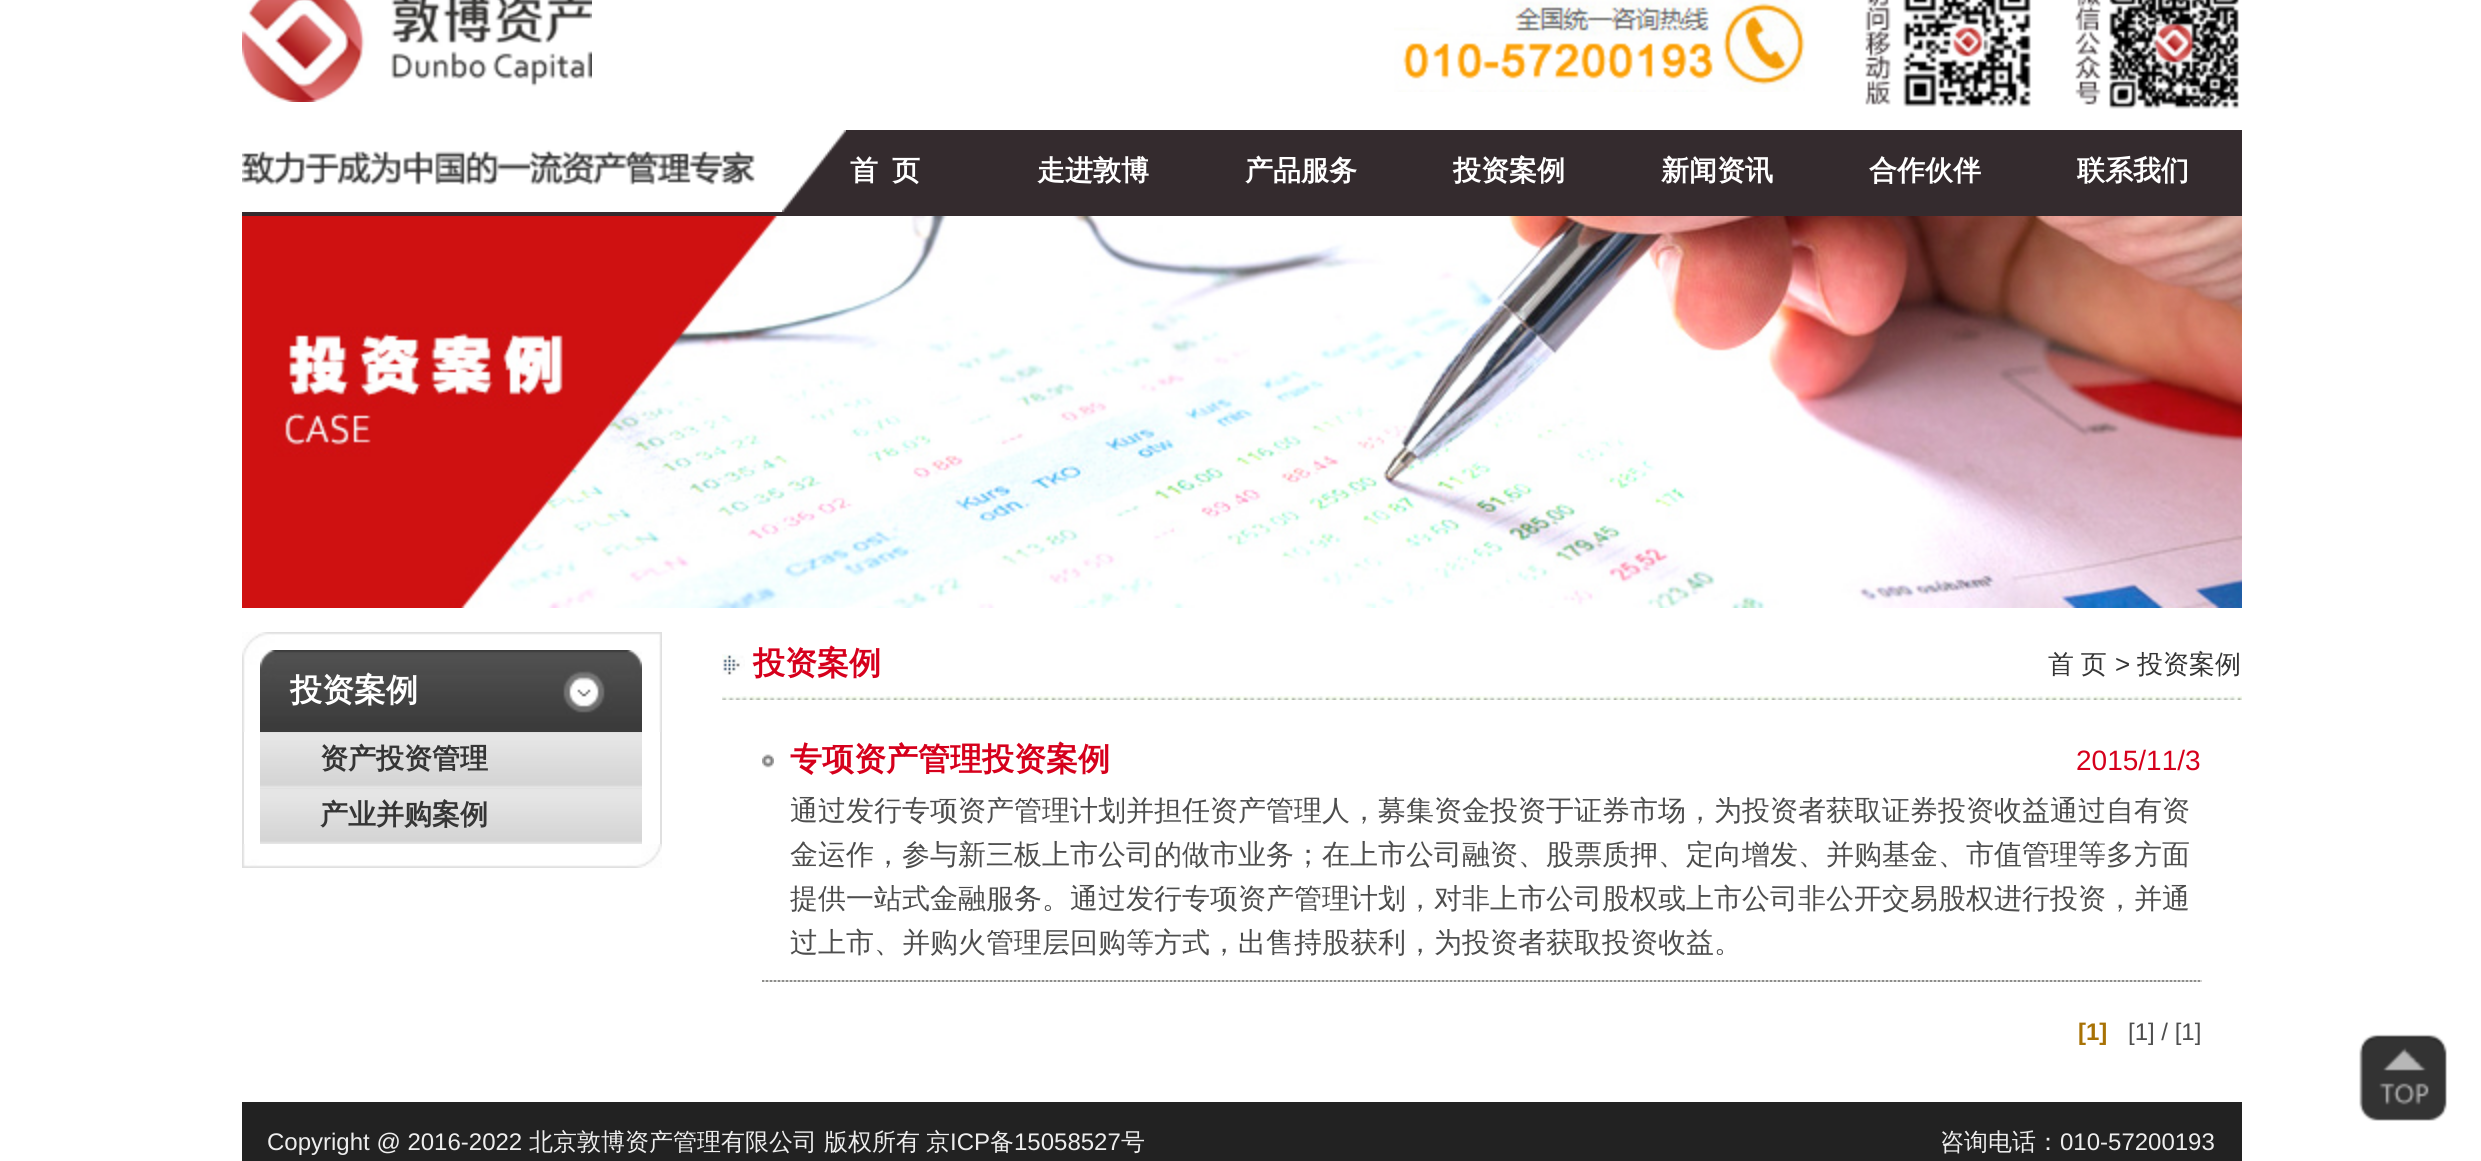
#include <cairo.h>
#include <math.h>
#include <stddef.h>


static void spaced_text(cairo_t *cr, double x, double y, const char *s, double letter, double word) {
    cairo_move_to(cr, x, y);
    while (*s) {
        char ch[5] = {0};
        int n = 0;
        do ch[n++] = *s++; while ((*s & 0xC0) == 0x80);
        cairo_show_text(cr, ch);
        cairo_rel_move_to(cr, letter + word * (*ch == ' '), 0);
    }
}

static void picture(cairo_t *cr, const char *path, double x, double y, double w, double h) {
    cairo_surface_t *image = cairo_image_surface_create_from_png(path);
    cairo_save(cr);
    cairo_set_source_surface(cr, image, x, y);
    cairo_rectangle(cr, x, y, w, h);
    cairo_fill(cr);
    cairo_restore(cr);
    cairo_surface_destroy(image);
}

int main(void) {
    cairo_surface_t *surface = cairo_image_surface_create(CAIRO_FORMAT_RGB24, 2481, 1161);
    cairo_t *cr = cairo_create(surface);
    cairo_font_options_t *options = cairo_font_options_create();
    cairo_font_options_set_hint_metrics(options, CAIRO_HINT_METRICS_OFF);
    cairo_font_options_set_hint_style(options, CAIRO_HINT_STYLE_NONE);
    cairo_set_font_options(cr, options);
    cairo_set_miter_limit(cr, 4);
    cairo_set_source_rgb(cr, 1, 1, 1);
    cairo_paint(cr);
    picture(cr, "img1.png", 242, 0, 350, 102);
    picture(cr, "img2.png", 1394, 0, 411, 92);
    picture(cr, "img3.png", 1865, 0, 375, 109);
    picture(cr, "img4.png", 242, 149, 513, 36);
    cairo_set_source_rgb(cr, 0.204, 0.169, 0.18);
    cairo_rectangle(cr, 846, 130, 1396, 82);
    cairo_fill(cr);
    picture(cr, "img5.png", 782, 130, 64, 82);
    cairo_select_font_face(cr, "WenQuanYi Zen Hei", CAIRO_FONT_SLANT_NORMAL, CAIRO_FONT_WEIGHT_BOLD);
    cairo_set_font_size(cr, 28);
    cairo_set_source_rgb(cr, 1, 1, 1);
    cairo_move_to(cr, 850, 180);
    cairo_show_text(cr, "首");
    cairo_move_to(cr, 892, 180);
    cairo_show_text(cr, "页");
    cairo_move_to(cr, 1037, 180);
    cairo_show_text(cr, "走进敦博");
    cairo_move_to(cr, 1245, 180);
    cairo_show_text(cr, "产品服务");
    cairo_move_to(cr, 1453, 180);
    cairo_show_text(cr, "投资案例");
    cairo_move_to(cr, 1661, 180);
    cairo_show_text(cr, "新闻资讯");
    cairo_move_to(cr, 1869, 180);
    cairo_show_text(cr, "合作伙伴");
    cairo_move_to(cr, 2077, 180);
    cairo_show_text(cr, "联系我们");
    cairo_set_source_rgb(cr, 0.204, 0.169, 0.18);
    cairo_rectangle(cr, 242, 212, 2000, 4);
    cairo_fill(cr);
    picture(cr, "img6.png", 242, 216, 2000, 392);
    picture(cr, "img7.png", 242, 632, 420, 100);
    picture(cr, "img8.png", 260, 650, 382, 82);
    cairo_set_font_size(cr, 32);
    cairo_set_source_rgb(cr, 1, 1, 1);
    cairo_move_to(cr, 290, 701);
    cairo_show_text(cr, "投资案例");
    cairo_set_source_rgb(cr, 0.878, 0.878, 0.878);
    cairo_rectangle(cr, 660, 732, 2, 112);
    cairo_fill(cr);
    cairo_rectangle(cr, 242, 732, 2, 112);
    cairo_fill(cr);
    picture(cr, "img9.png", 260, 732, 382, 56);
    cairo_set_font_size(cr, 28);
    cairo_set_source_rgb(cr, 0.208, 0.208, 0.208);
    cairo_move_to(cr, 320, 768);
    cairo_show_text(cr, "资产投资管理");
    picture(cr, "img9.png", 260, 788, 382, 56);
    cairo_move_to(cr, 320, 824);
    cairo_show_text(cr, "产业并购案例");
    picture(cr, "img10.png", 242, 844, 420, 24);
    picture(cr, "img11.png", 722, 654, 23, 21);
    cairo_set_font_size(cr, 32);
    cairo_set_source_rgb(cr, 0.839, 0, 0.11);
    cairo_move_to(cr, 753, 674);
    cairo_show_text(cr, "投资案例");
    cairo_select_font_face(cr, "WenQuanYi Zen Hei Medium", CAIRO_FONT_SLANT_NORMAL, CAIRO_FONT_WEIGHT_NORMAL);
    cairo_set_font_size(cr, 26);
    cairo_set_source_rgb(cr, 0.208, 0.208, 0.208);
    spaced_text(cr, 2048, 673, "首 页", 0, -1);
    cairo_select_font_face(cr, "Liberation Sans", CAIRO_FONT_SLANT_NORMAL, CAIRO_FONT_WEIGHT_NORMAL);
    cairo_move_to(cr, 2115, 673);
    cairo_show_text(cr, ">");
    cairo_select_font_face(cr, "WenQuanYi Zen Hei Medium", CAIRO_FONT_SLANT_NORMAL, CAIRO_FONT_WEIGHT_NORMAL);
    cairo_move_to(cr, 2137, 673);
    cairo_show_text(cr, "投资案例");
    picture(cr, "img12.png", 722, 696, 1520, 4);
    picture(cr, "img13.png", 762, 754, 12, 14);
    cairo_select_font_face(cr, "WenQuanYi Zen Hei", CAIRO_FONT_SLANT_NORMAL, CAIRO_FONT_WEIGHT_BOLD);
    cairo_set_font_size(cr, 32);
    cairo_set_source_rgb(cr, 0.839, 0, 0.11);
    cairo_move_to(cr, 790, 770);
    cairo_show_text(cr, "专项资产管理投资案例");
    cairo_select_font_face(cr, "Liberation Sans", CAIRO_FONT_SLANT_NORMAL, CAIRO_FONT_WEIGHT_NORMAL);
    cairo_set_font_size(cr, 28);
    cairo_move_to(cr, 2076, 770);
    cairo_show_text(cr, "2015/11/3");
    cairo_select_font_face(cr, "WenQuanYi Zen Hei Medium", CAIRO_FONT_SLANT_NORMAL, CAIRO_FONT_WEIGHT_NORMAL);
    cairo_set_source_rgb(cr, 0.302, 0.302, 0.302);
    cairo_move_to(cr, 790, 820);
    cairo_show_text(cr, "通过发行专项资产管理计划并担任资产管理人，募集资金投资于证券市场，为投资者获取证券投资收益通过自有资");
    cairo_move_to(cr, 790, 864);
    cairo_show_text(cr, "金运作，参与新三板上市公司的做市业务；在上市公司融资、股票质押、定向增发、并购基金、市值管理等多方面");
    cairo_move_to(cr, 790, 908);
    cairo_show_text(cr, "提供一站式金融服务。通过发行专项资产管理计划，对非上市公司股权或上市公司非公开交易股权进行投资，并通");
    cairo_move_to(cr, 790, 952);
    cairo_show_text(cr, "过上市、并购火管理层回购等方式，出售持股获利，为投资者获取投资收益。");
    picture(cr, "img14.png", 762, 980, 1440, 2);
    cairo_select_font_face(cr, "Liberation Sans", CAIRO_FONT_SLANT_NORMAL, CAIRO_FONT_WEIGHT_BOLD);
    cairo_set_font_size(cr, 24);
    cairo_set_source_rgb(cr, 0.659, 0.447, 0.02);
    cairo_move_to(cr, 2078, 1040);
    cairo_show_text(cr, "[1]");
    cairo_select_font_face(cr, "Liberation Sans", CAIRO_FONT_SLANT_NORMAL, CAIRO_FONT_WEIGHT_NORMAL);
    cairo_set_source_rgb(cr, 0.302, 0.302, 0.302);
    cairo_move_to(cr, 2128, 1040);
    cairo_show_text(cr, "[1] / [1]");
    picture(cr, "img15.png", 2359, 1034, 88, 87);
    cairo_set_source_rgb(cr, 0.133, 0.133, 0.133);
    cairo_rectangle(cr, 242, 1102, 2000, 59);
    cairo_fill(cr);
    cairo_set_source_rgb(cr, 0.933, 0.933, 0.933);
    cairo_move_to(cr, 267, 1150);
    cairo_show_text(cr, "Copyright @ 2016-2022");
    cairo_select_font_face(cr, "WenQuanYi Zen Hei Medium", CAIRO_FONT_SLANT_NORMAL, CAIRO_FONT_WEIGHT_NORMAL);
    cairo_move_to(cr, 529, 1150);
    cairo_show_text(cr, "北京敦博资产管理有限公司");
    cairo_move_to(cr, 824, 1150);
    cairo_show_text(cr, "版权所有");
    cairo_move_to(cr, 926, 1150);
    cairo_show_text(cr, "京");
    cairo_select_font_face(cr, "Liberation Sans", CAIRO_FONT_SLANT_NORMAL, CAIRO_FONT_WEIGHT_NORMAL);
    cairo_move_to(cr, 950, 1150);
    cairo_show_text(cr, "ICP");
    cairo_select_font_face(cr, "WenQuanYi Zen Hei Medium", CAIRO_FONT_SLANT_NORMAL, CAIRO_FONT_WEIGHT_NORMAL);
    cairo_move_to(cr, 990, 1150);
    cairo_show_text(cr, "备");
    cairo_select_font_face(cr, "Liberation Sans", CAIRO_FONT_SLANT_NORMAL, CAIRO_FONT_WEIGHT_NORMAL);
    cairo_move_to(cr, 1014, 1150);
    cairo_show_text(cr, "15058527");
    cairo_select_font_face(cr, "WenQuanYi Zen Hei Medium", CAIRO_FONT_SLANT_NORMAL, CAIRO_FONT_WEIGHT_NORMAL);
    cairo_move_to(cr, 1121, 1150);
    cairo_show_text(cr, "号");
    cairo_move_to(cr, 1940, 1150);
    cairo_show_text(cr, "咨询电话：");
    cairo_select_font_face(cr, "Liberation Sans", CAIRO_FONT_SLANT_NORMAL, CAIRO_FONT_WEIGHT_NORMAL);
    cairo_move_to(cr, 2060, 1150);
    cairo_show_text(cr, "010-57200193");
    cairo_surface_write_to_png(surface, "page.png");
    cairo_font_options_destroy(options);
    cairo_destroy(cr);
    cairo_surface_destroy(surface);
    return 0;
}
